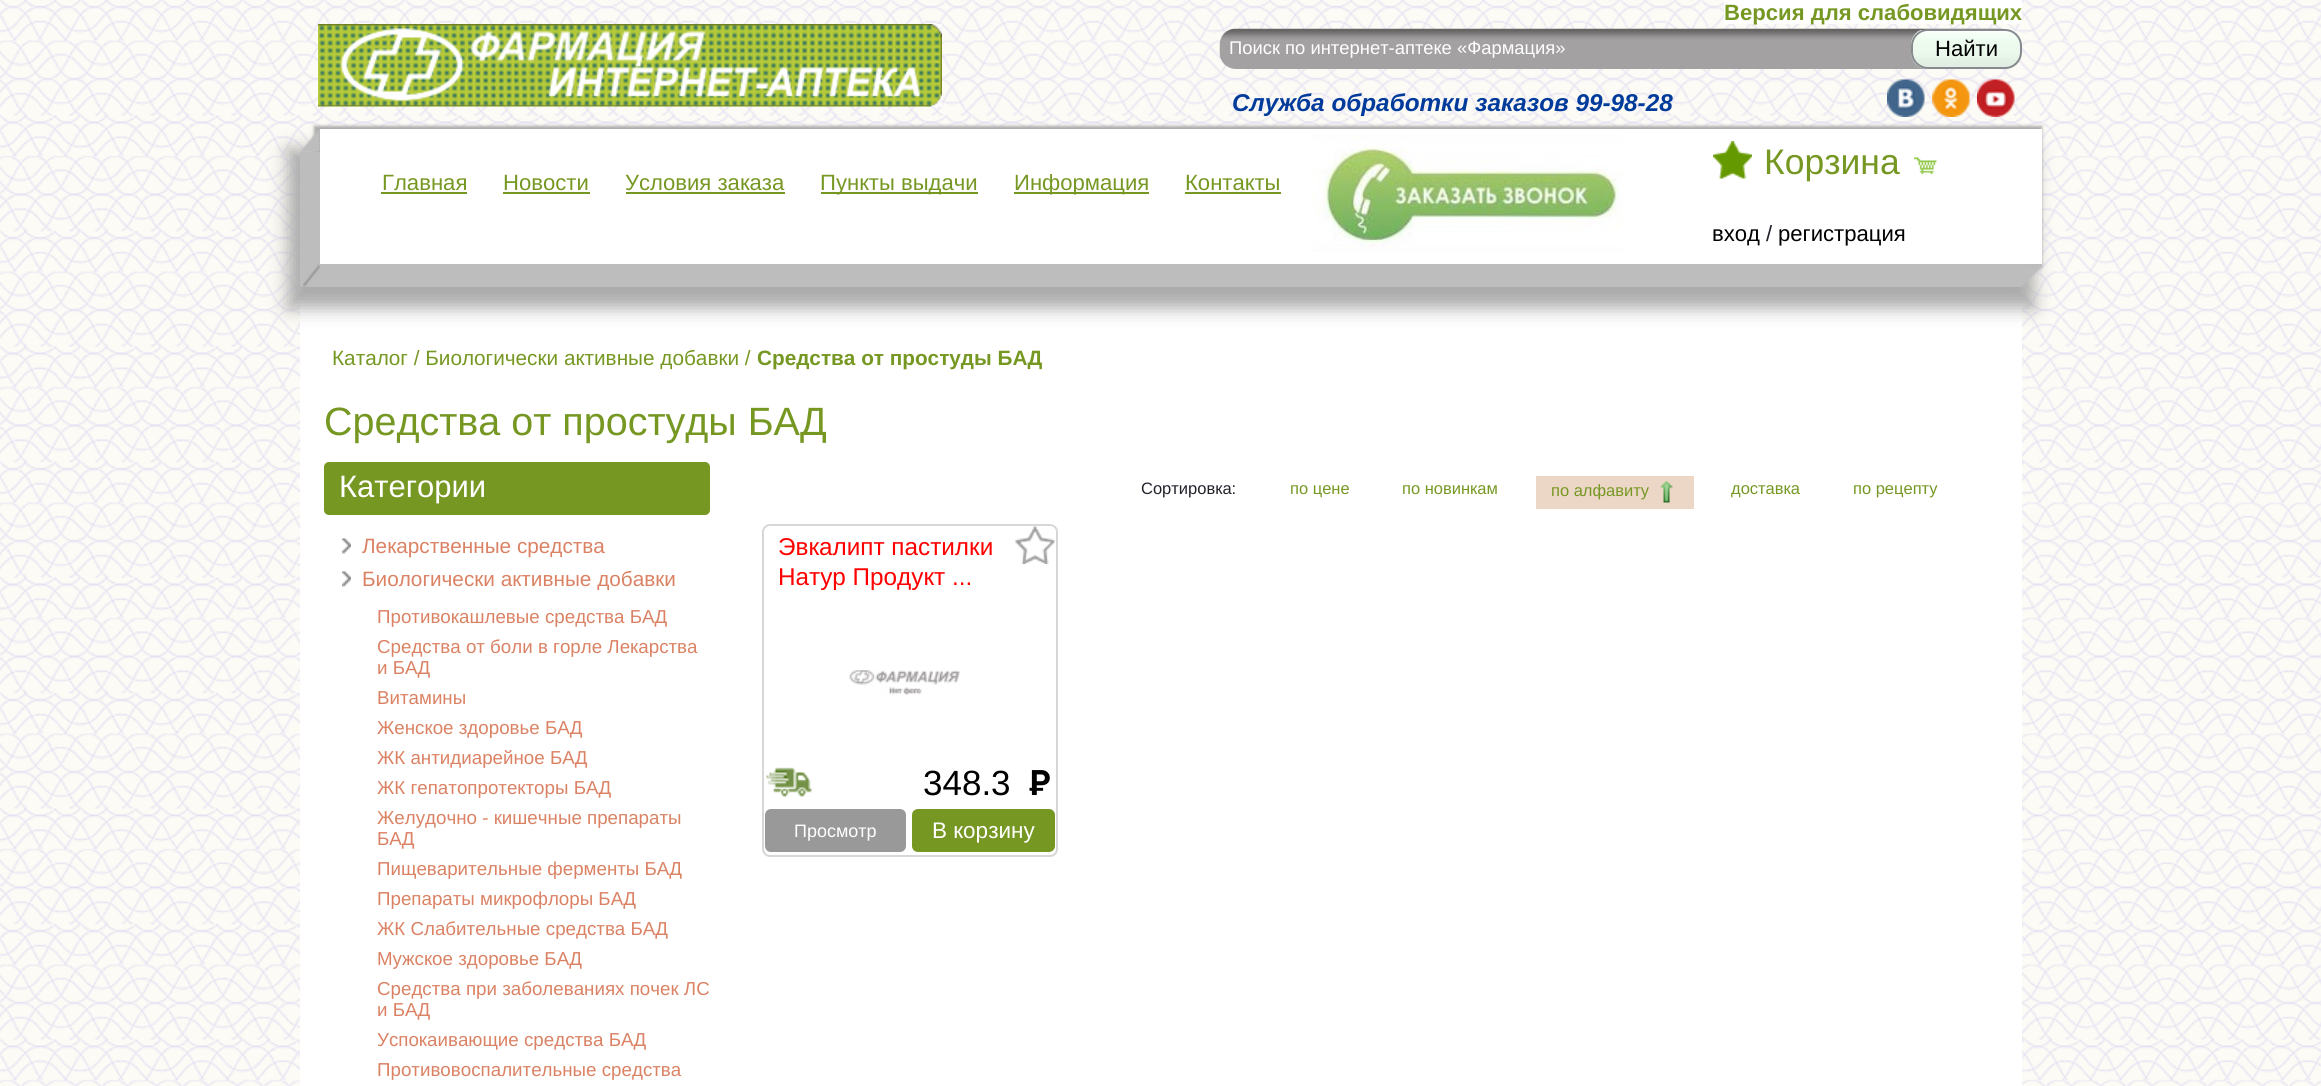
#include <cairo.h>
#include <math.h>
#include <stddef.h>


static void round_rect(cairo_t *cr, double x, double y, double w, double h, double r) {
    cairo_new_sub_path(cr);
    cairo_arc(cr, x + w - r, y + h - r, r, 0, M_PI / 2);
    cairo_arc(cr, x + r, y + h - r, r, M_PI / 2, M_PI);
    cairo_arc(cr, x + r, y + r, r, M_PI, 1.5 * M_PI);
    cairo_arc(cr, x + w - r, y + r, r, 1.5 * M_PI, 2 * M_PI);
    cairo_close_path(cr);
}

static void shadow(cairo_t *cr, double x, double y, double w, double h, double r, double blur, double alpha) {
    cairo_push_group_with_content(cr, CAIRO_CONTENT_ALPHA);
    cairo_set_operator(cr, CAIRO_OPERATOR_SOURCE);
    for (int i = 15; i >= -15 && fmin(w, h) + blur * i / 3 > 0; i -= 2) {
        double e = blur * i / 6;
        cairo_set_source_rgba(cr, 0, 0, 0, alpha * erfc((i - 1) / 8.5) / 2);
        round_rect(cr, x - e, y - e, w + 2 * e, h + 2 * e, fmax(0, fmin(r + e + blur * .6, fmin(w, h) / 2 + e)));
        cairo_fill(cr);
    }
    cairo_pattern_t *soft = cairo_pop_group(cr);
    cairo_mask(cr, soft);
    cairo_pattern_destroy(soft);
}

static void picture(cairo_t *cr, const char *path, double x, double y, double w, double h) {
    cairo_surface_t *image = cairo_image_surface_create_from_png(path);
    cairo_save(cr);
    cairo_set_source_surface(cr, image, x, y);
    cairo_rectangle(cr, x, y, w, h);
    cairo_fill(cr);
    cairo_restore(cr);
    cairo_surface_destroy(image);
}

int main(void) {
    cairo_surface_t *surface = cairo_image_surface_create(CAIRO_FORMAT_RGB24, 2321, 1086);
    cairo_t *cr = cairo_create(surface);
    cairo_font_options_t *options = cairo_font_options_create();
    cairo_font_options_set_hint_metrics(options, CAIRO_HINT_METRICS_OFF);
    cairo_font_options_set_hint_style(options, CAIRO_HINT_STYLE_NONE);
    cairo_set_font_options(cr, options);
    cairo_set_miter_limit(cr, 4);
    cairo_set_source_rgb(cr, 1, 1, 1);
    cairo_paint(cr);
    picture(cr, "img1.png", 0, 0, 2321, 1086);
    cairo_set_source_rgb(cr, 1, 1, 1);
    cairo_rectangle(cr, 1724, 0, 298, 24);
    cairo_fill(cr);
    cairo_select_font_face(cr, "Liberation Sans", CAIRO_FONT_SLANT_NORMAL, CAIRO_FONT_WEIGHT_BOLD);
    cairo_set_font_size(cr, 22.1);
    cairo_set_source_rgb(cr, 0.463, 0.596, 0.137);
    cairo_move_to(cr, 1724, 20);
    cairo_show_text(cr, "Версия для слабовидящих");
    picture(cr, "img2.png", 318, 24, 624, 83);
    picture(cr, "img3.png", 1219, 28, 787, 41);
    cairo_select_font_face(cr, "Liberation Sans", CAIRO_FONT_SLANT_NORMAL, CAIRO_FONT_WEIGHT_NORMAL);
    cairo_set_font_size(cr, 18.4);
    cairo_set_source_rgb(cr, 1, 1, 1);
    cairo_move_to(cr, 1229, 54);
    cairo_show_text(cr, "Поиск по интернет-аптеке «Фармация»");
    picture(cr, "img4.png", 1911, 30, 111, 39);
    round_rect(cr, 1912, 30, 109, 38, 16);
    cairo_set_source_rgb(cr, 0.525, 0.541, 0.561);
    cairo_stroke(cr);
    cairo_set_font_size(cr, 22.1);
    cairo_set_source_rgb(cr, 0, 0, 0);
    cairo_move_to(cr, 1935, 56);
    cairo_show_text(cr, "Найти");
    cairo_select_font_face(cr, "Liberation Sans", CAIRO_FONT_SLANT_ITALIC, CAIRO_FONT_WEIGHT_BOLD);
    cairo_set_font_size(cr, 24.3);
    cairo_set_source_rgb(cr, 0, 0.231, 0.608);
    cairo_move_to(cr, 1232, 111);
    cairo_show_text(cr, "Служба обработки заказов 99-98-28");
    picture(cr, "img5.png", 1887, 79, 38, 38);
    picture(cr, "img6.png", 1932, 79, 38, 38);
    picture(cr, "img7.png", 1977, 79, 38, 38);
    cairo_set_source_rgb(cr, 0.667, 0.667, 0.667);
    shadow(cr, 314, 126, 1728, 141, 0, 1.5, 1);
    cairo_set_source_rgb(cr, 1, 1, 1);
    cairo_rectangle(cr, 300, 287, 1722, 799);
    cairo_fill(cr);
    cairo_set_source_rgb(cr, 0.667, 0.667, 0.667);
    shadow(cr, 288, 149, 1746, 159, 0, 9, 1);
    cairo_set_source_rgb(cr, 0.745, 0.741, 0.741);
    cairo_rectangle(cr, 300, 152, 1722, 135);
    cairo_fill(cr);
    cairo_set_source_rgb(cr, 1, 1, 1);
    cairo_rectangle(cr, 320, 129, 1722, 135);
    cairo_fill(cr);
    picture(cr, "img8.png", 300, 129, 20, 23);
    cairo_select_font_face(cr, "Liberation Sans", CAIRO_FONT_SLANT_NORMAL, CAIRO_FONT_WEIGHT_NORMAL);
    cairo_set_font_size(cr, 22.1);
    cairo_set_source_rgb(cr, 0.463, 0.596, 0.137);
    cairo_move_to(cr, 382, 190);
    cairo_show_text(cr, "Главная");
    cairo_rectangle(cr, 381, 192, 86, 2);
    cairo_fill(cr);
    cairo_move_to(cr, 503, 190);
    cairo_show_text(cr, "Новости");
    cairo_rectangle(cr, 503, 192, 87, 2);
    cairo_fill(cr);
    cairo_move_to(cr, 625, 190);
    cairo_show_text(cr, "Условия заказа");
    cairo_rectangle(cr, 626, 192, 159, 2);
    cairo_fill(cr);
    cairo_rectangle(cr, 821, 192, 157, 2);
    cairo_fill(cr);
    cairo_move_to(cr, 820, 190);
    cairo_show_text(cr, "Пункты выдачи");
    cairo_rectangle(cr, 1014, 192, 135, 2);
    cairo_fill(cr);
    cairo_move_to(cr, 1014, 190);
    cairo_show_text(cr, "Информация");
    cairo_move_to(cr, 1185, 190);
    cairo_show_text(cr, "Контакты");
    cairo_rectangle(cr, 1185, 192, 96, 2);
    cairo_fill(cr);
    picture(cr, "img9.png", 1312, 135, 311, 117);
    picture(cr, "img10.png", 1914, 157, 23, 17);
    picture(cr, "img11.png", 1713, 141, 39, 38);
    cairo_set_font_size(cr, 35.5);
    cairo_move_to(cr, 1764, 174);
    cairo_show_text(cr, "Корзина");
    cairo_set_font_size(cr, 22.1);
    cairo_set_source_rgb(cr, 0, 0, 0);
    cairo_move_to(cr, 1712, 241);
    cairo_show_text(cr, "вход");
    cairo_set_source_rgb(cr, 0.133, 0.133, 0.169);
    cairo_move_to(cr, 1766, 241);
    cairo_show_text(cr, "/");
    cairo_set_source_rgb(cr, 0, 0, 0);
    cairo_move_to(cr, 1778, 241);
    cairo_show_text(cr, "регистрация");
    picture(cr, "img12.png", 303, 264, 17, 23);
    picture(cr, "img13.png", 2022, 264, 20, 22);
    cairo_set_font_size(cr, 20.75);
    cairo_set_source_rgb(cr, 0.463, 0.596, 0.137);
    cairo_move_to(cr, 332, 365);
    cairo_show_text(cr, "Каталог / Биологически активные добавки /");
    cairo_select_font_face(cr, "Liberation Sans", CAIRO_FONT_SLANT_NORMAL, CAIRO_FONT_WEIGHT_BOLD);
    cairo_move_to(cr, 757, 365);
    cairo_show_text(cr, "Средства от простуды БАД");
    cairo_select_font_face(cr, "Liberation Sans", CAIRO_FONT_SLANT_NORMAL, CAIRO_FONT_WEIGHT_NORMAL);
    cairo_set_font_size(cr, 39.5);
    cairo_move_to(cr, 324, 435);
    cairo_show_text(cr, "Средства от простуды БАД");
    round_rect(cr, 324, 462, 386, 53, 5);
    cairo_fill(cr);
    cairo_set_font_size(cr, 31);
    cairo_set_source_rgb(cr, 1, 1, 1);
    cairo_move_to(cr, 339, 497);
    cairo_show_text(cr, "Категории");
    picture(cr, "img14.png", 342, 538, 9, 16);
    cairo_set_font_size(cr, 20.75);
    cairo_set_source_rgb(cr, 0.859, 0.51, 0.392);
    cairo_move_to(cr, 362, 553);
    cairo_show_text(cr, "Лекарственные средства");
    picture(cr, "img14.png", 342, 571, 9, 16);
    cairo_move_to(cr, 362, 586);
    cairo_show_text(cr, "Биологически активные добавки");
    cairo_set_font_size(cr, 18.75);
    cairo_move_to(cr, 377, 623);
    cairo_show_text(cr, "Противокашлевые средства БАД");
    cairo_move_to(cr, 377, 653);
    cairo_show_text(cr, "Средства от боли в горле Лекарства");
    cairo_move_to(cr, 377, 674);
    cairo_show_text(cr, "и БАД");
    cairo_move_to(cr, 377, 704);
    cairo_show_text(cr, "Витамины");
    cairo_move_to(cr, 377, 734);
    cairo_show_text(cr, "Женское здоровье БАД");
    cairo_move_to(cr, 377, 764);
    cairo_show_text(cr, "ЖК антидиарейное БАД");
    cairo_move_to(cr, 377, 794);
    cairo_show_text(cr, "ЖК гепатопротекторы БАД");
    cairo_move_to(cr, 377, 824);
    cairo_show_text(cr, "Желудочно - кишечные препараты");
    cairo_move_to(cr, 377, 845);
    cairo_show_text(cr, "БАД");
    cairo_move_to(cr, 377, 875);
    cairo_show_text(cr, "Пищеварительные ферменты БАД");
    cairo_move_to(cr, 377, 905);
    cairo_show_text(cr, "Препараты микрофлоры БАД");
    cairo_move_to(cr, 377, 935);
    cairo_show_text(cr, "ЖК Слабительные средства БАД");
    cairo_move_to(cr, 377, 965);
    cairo_show_text(cr, "Мужское здоровье БАД");
    cairo_move_to(cr, 377, 995);
    cairo_show_text(cr, "Средства при заболеваниях почек ЛС");
    cairo_move_to(cr, 377, 1016);
    cairo_show_text(cr, "и БАД");
    cairo_move_to(cr, 377, 1046);
    cairo_show_text(cr, "Успокаивающие средства БАД");
    cairo_move_to(cr, 377, 1076);
    cairo_show_text(cr, "Противовоспалительные средства");
    cairo_set_font_size(cr, 16.5);
    cairo_set_source_rgb(cr, 0.133, 0.133, 0.169);
    cairo_move_to(cr, 1141, 494);
    cairo_show_text(cr, "Сортировка:");
    cairo_set_source_rgb(cr, 0.463, 0.596, 0.137);
    cairo_move_to(cr, 1290, 494);
    cairo_show_text(cr, "по цене");
    cairo_move_to(cr, 1402, 494);
    cairo_show_text(cr, "по новинкам");
    cairo_set_source_rgb(cr, 0.925, 0.839, 0.776);
    cairo_rectangle(cr, 1536, 476, 158, 33);
    cairo_fill(cr);
    cairo_set_source_rgb(cr, 0.463, 0.596, 0.137);
    cairo_move_to(cr, 1551, 496);
    cairo_show_text(cr, "по алфавиту");
    picture(cr, "img15.png", 1660, 481, 13, 22);
    cairo_move_to(cr, 1731, 494);
    cairo_show_text(cr, "доставка");
    cairo_move_to(cr, 1853, 494);
    cairo_show_text(cr, "по рецепту");
    round_rect(cr, 763, 525, 294, 331, 7);
    cairo_set_source_rgb(cr, 0.843, 0.843, 0.843);
    cairo_stroke(cr);
    cairo_set_font_size(cr, 24.3);
    cairo_set_source_rgb(cr, 1, 0, 0);
    cairo_move_to(cr, 778, 555);
    cairo_show_text(cr, "Эвкалипт пастилки");
    cairo_move_to(cr, 778, 585);
    cairo_show_text(cr, "Натур Продукт ...");
    picture(cr, "img16.png", 1015, 526, 40, 38);
    picture(cr, "img17.png", 849, 670, 111, 25);
    picture(cr, "img18.png", 766, 767, 46, 30);
    cairo_set_font_size(cr, 35);
    cairo_set_source_rgb(cr, 0, 0, 0);
    cairo_move_to(cr, 923, 795);
    cairo_show_text(cr, "348.3");
    cairo_select_font_face(cr, "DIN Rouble", CAIRO_FONT_SLANT_NORMAL, CAIRO_FONT_WEIGHT_BOLD);
    cairo_move_to(cr, 1022, 795);
    cairo_show_text(cr, "руб");
    cairo_set_source_rgb(cr, 0.6, 0.6, 0.6);
    round_rect(cr, 765, 809, 141, 43, 6);
    cairo_fill(cr);
    cairo_select_font_face(cr, "Liberation Sans", CAIRO_FONT_SLANT_NORMAL, CAIRO_FONT_WEIGHT_NORMAL);
    cairo_set_font_size(cr, 18);
    cairo_set_source_rgb(cr, 1, 1, 1);
    cairo_move_to(cr, 794, 837);
    cairo_show_text(cr, "Просмотр");
    cairo_set_source_rgb(cr, 0.463, 0.596, 0.137);
    round_rect(cr, 912, 809, 143, 43, 6);
    cairo_fill(cr);
    cairo_set_font_size(cr, 22.5);
    cairo_set_source_rgb(cr, 1, 1, 1);
    cairo_move_to(cr, 932, 838);
    cairo_show_text(cr, "В корзину");
    cairo_surface_write_to_png(surface, "page.png");
    cairo_font_options_destroy(options);
    cairo_destroy(cr);
    cairo_surface_destroy(surface);
    return 0;
}
